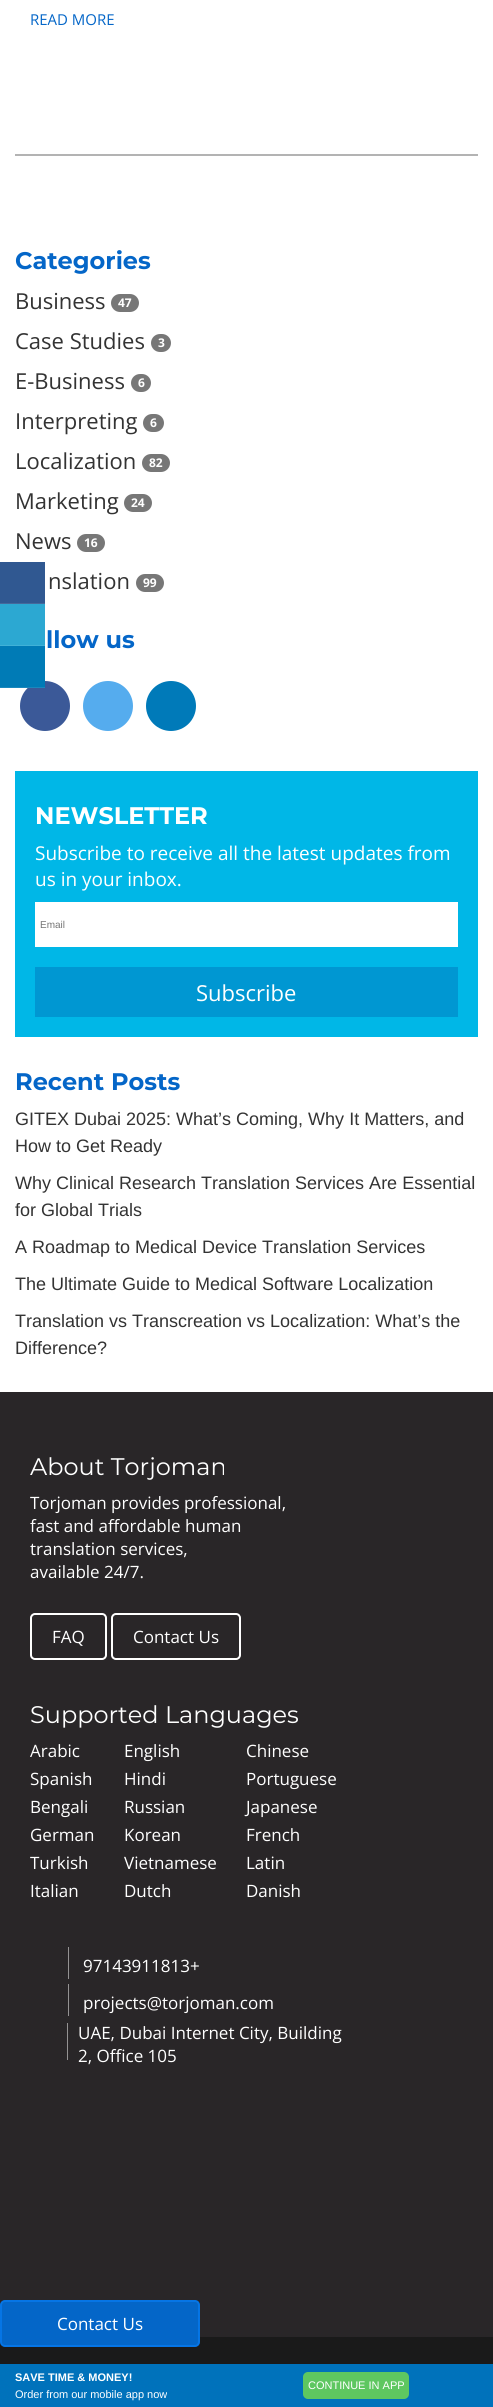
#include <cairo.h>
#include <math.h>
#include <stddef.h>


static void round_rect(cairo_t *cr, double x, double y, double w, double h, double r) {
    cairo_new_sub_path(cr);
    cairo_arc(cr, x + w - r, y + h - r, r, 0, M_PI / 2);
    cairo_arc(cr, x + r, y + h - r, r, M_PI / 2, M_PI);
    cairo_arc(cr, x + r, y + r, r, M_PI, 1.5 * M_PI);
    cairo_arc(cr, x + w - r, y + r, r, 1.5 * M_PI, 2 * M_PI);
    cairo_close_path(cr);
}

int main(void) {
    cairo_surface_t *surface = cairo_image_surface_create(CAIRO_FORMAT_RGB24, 493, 2407);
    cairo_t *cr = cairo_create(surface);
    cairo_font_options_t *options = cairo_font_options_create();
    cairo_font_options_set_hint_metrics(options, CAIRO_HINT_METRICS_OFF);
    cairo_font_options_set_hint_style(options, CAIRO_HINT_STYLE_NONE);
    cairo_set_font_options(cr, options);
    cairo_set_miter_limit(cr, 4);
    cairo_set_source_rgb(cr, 1, 1, 1);
    cairo_paint(cr);
    cairo_set_source_rgb(cr, 0.702, 0.702, 0.702);
    cairo_rectangle(cr, 15, 154, 463, 2);
    cairo_fill(cr);
    cairo_select_font_face(cr, "Open Sans", CAIRO_FONT_SLANT_NORMAL, CAIRO_FONT_WEIGHT_NORMAL);
    cairo_set_font_size(cr, 15);
    cairo_set_source_rgb(cr, 0.016, 0.4, 0.784);
    cairo_move_to(cr, 30, 25);
    cairo_show_text(cr, "READ MORE");
    cairo_select_font_face(cr, "Montserrat", CAIRO_FONT_SLANT_NORMAL, CAIRO_FONT_WEIGHT_BOLD);
    cairo_set_font_size(cr, 24);
    cairo_move_to(cr, 15, 269);
    cairo_show_text(cr, "Categories");
    cairo_select_font_face(cr, "Open Sans", CAIRO_FONT_SLANT_NORMAL, CAIRO_FONT_WEIGHT_NORMAL);
    cairo_set_font_size(cr, 22);
    cairo_set_source_rgb(cr, 0.2, 0.2, 0.2);
    cairo_move_to(cr, 15, 309);
    cairo_show_text(cr, "Business");
    cairo_set_source_rgb(cr, 0.467, 0.467, 0.467);
    round_rect(cr, 111, 294, 28, 18, 9);
    cairo_fill(cr);
    cairo_select_font_face(cr, "Open Sans", CAIRO_FONT_SLANT_NORMAL, CAIRO_FONT_WEIGHT_BOLD);
    cairo_set_font_size(cr, 12);
    cairo_set_source_rgb(cr, 1, 1, 1);
    cairo_move_to(cr, 118, 307);
    cairo_show_text(cr, "47");
    cairo_select_font_face(cr, "Open Sans", CAIRO_FONT_SLANT_NORMAL, CAIRO_FONT_WEIGHT_NORMAL);
    cairo_set_font_size(cr, 22);
    cairo_set_source_rgb(cr, 0.2, 0.2, 0.2);
    cairo_move_to(cr, 15, 349);
    cairo_show_text(cr, "Case Studies");
    cairo_set_source_rgb(cr, 0.467, 0.467, 0.467);
    round_rect(cr, 151, 334, 20, 18, 9);
    cairo_fill(cr);
    cairo_select_font_face(cr, "Open Sans", CAIRO_FONT_SLANT_NORMAL, CAIRO_FONT_WEIGHT_BOLD);
    cairo_set_font_size(cr, 12);
    cairo_set_source_rgb(cr, 1, 1, 1);
    cairo_move_to(cr, 158, 347);
    cairo_show_text(cr, "3");
    cairo_select_font_face(cr, "Open Sans", CAIRO_FONT_SLANT_NORMAL, CAIRO_FONT_WEIGHT_NORMAL);
    cairo_set_font_size(cr, 22);
    cairo_set_source_rgb(cr, 0.2, 0.2, 0.2);
    cairo_move_to(cr, 15, 389);
    cairo_show_text(cr, "E-Business");
    cairo_set_source_rgb(cr, 0.467, 0.467, 0.467);
    round_rect(cr, 131, 374, 20, 18, 9);
    cairo_fill(cr);
    cairo_select_font_face(cr, "Open Sans", CAIRO_FONT_SLANT_NORMAL, CAIRO_FONT_WEIGHT_BOLD);
    cairo_set_font_size(cr, 12);
    cairo_set_source_rgb(cr, 1, 1, 1);
    cairo_move_to(cr, 138, 387);
    cairo_show_text(cr, "6");
    cairo_select_font_face(cr, "Open Sans", CAIRO_FONT_SLANT_NORMAL, CAIRO_FONT_WEIGHT_NORMAL);
    cairo_set_font_size(cr, 22);
    cairo_set_source_rgb(cr, 0.2, 0.2, 0.2);
    cairo_move_to(cr, 15, 429);
    cairo_show_text(cr, "Interpreting");
    cairo_set_source_rgb(cr, 0.467, 0.467, 0.467);
    round_rect(cr, 143, 414, 21, 18, 9);
    cairo_fill(cr);
    cairo_select_font_face(cr, "Open Sans", CAIRO_FONT_SLANT_NORMAL, CAIRO_FONT_WEIGHT_BOLD);
    cairo_set_font_size(cr, 12);
    cairo_set_source_rgb(cr, 1, 1, 1);
    cairo_move_to(cr, 150, 427);
    cairo_show_text(cr, "6");
    cairo_select_font_face(cr, "Open Sans", CAIRO_FONT_SLANT_NORMAL, CAIRO_FONT_WEIGHT_NORMAL);
    cairo_set_font_size(cr, 22);
    cairo_set_source_rgb(cr, 0.2, 0.2, 0.2);
    cairo_move_to(cr, 15, 469);
    cairo_show_text(cr, "Localization");
    cairo_set_source_rgb(cr, 0.467, 0.467, 0.467);
    round_rect(cr, 142, 454, 28, 18, 9);
    cairo_fill(cr);
    cairo_select_font_face(cr, "Open Sans", CAIRO_FONT_SLANT_NORMAL, CAIRO_FONT_WEIGHT_BOLD);
    cairo_set_font_size(cr, 12);
    cairo_set_source_rgb(cr, 1, 1, 1);
    cairo_move_to(cr, 149, 467);
    cairo_show_text(cr, "82");
    cairo_select_font_face(cr, "Open Sans", CAIRO_FONT_SLANT_NORMAL, CAIRO_FONT_WEIGHT_NORMAL);
    cairo_set_font_size(cr, 22);
    cairo_set_source_rgb(cr, 0.2, 0.2, 0.2);
    cairo_move_to(cr, 15, 509);
    cairo_show_text(cr, "Marketing");
    cairo_set_source_rgb(cr, 0.467, 0.467, 0.467);
    round_rect(cr, 124, 494, 28, 18, 9);
    cairo_fill(cr);
    cairo_select_font_face(cr, "Open Sans", CAIRO_FONT_SLANT_NORMAL, CAIRO_FONT_WEIGHT_BOLD);
    cairo_set_font_size(cr, 12);
    cairo_set_source_rgb(cr, 1, 1, 1);
    cairo_move_to(cr, 131, 507);
    cairo_show_text(cr, "24");
    cairo_select_font_face(cr, "Open Sans", CAIRO_FONT_SLANT_NORMAL, CAIRO_FONT_WEIGHT_NORMAL);
    cairo_set_font_size(cr, 22);
    cairo_set_source_rgb(cr, 0.2, 0.2, 0.2);
    cairo_move_to(cr, 15, 549);
    cairo_show_text(cr, "News");
    cairo_set_source_rgb(cr, 0.467, 0.467, 0.467);
    round_rect(cr, 77, 534, 28, 18, 9);
    cairo_fill(cr);
    cairo_select_font_face(cr, "Open Sans", CAIRO_FONT_SLANT_NORMAL, CAIRO_FONT_WEIGHT_BOLD);
    cairo_set_font_size(cr, 12);
    cairo_set_source_rgb(cr, 1, 1, 1);
    cairo_move_to(cr, 84, 547);
    cairo_show_text(cr, "16");
    cairo_select_font_face(cr, "Open Sans", CAIRO_FONT_SLANT_NORMAL, CAIRO_FONT_WEIGHT_NORMAL);
    cairo_set_font_size(cr, 22);
    cairo_set_source_rgb(cr, 0.2, 0.2, 0.2);
    cairo_move_to(cr, 48, 589);
    cairo_show_text(cr, "nslation");
    cairo_set_source_rgb(cr, 0.467, 0.467, 0.467);
    round_rect(cr, 136, 574, 28, 18, 9);
    cairo_fill(cr);
    cairo_select_font_face(cr, "Open Sans", CAIRO_FONT_SLANT_NORMAL, CAIRO_FONT_WEIGHT_BOLD);
    cairo_set_font_size(cr, 12);
    cairo_set_source_rgb(cr, 1, 1, 1);
    cairo_move_to(cr, 143, 587);
    cairo_show_text(cr, "99");
    cairo_select_font_face(cr, "Montserrat", CAIRO_FONT_SLANT_NORMAL, CAIRO_FONT_WEIGHT_BOLD);
    cairo_set_font_size(cr, 24);
    cairo_set_source_rgb(cr, 0.016, 0.4, 0.784);
    cairo_move_to(cr, 46, 648);
    cairo_show_text(cr, "llow us");
    cairo_set_source_rgb(cr, 0.231, 0.349, 0.596);
    cairo_new_path(cr);
    cairo_arc(cr, 45, 706, 25, 0, 2 * M_PI);
    cairo_fill(cr);
    cairo_set_source_rgb(cr, 0.333, 0.675, 0.933);
    cairo_arc(cr, 108, 706, 25, 0, 2 * M_PI);
    cairo_fill(cr);
    cairo_set_source_rgb(cr, 0, 0.478, 0.725);
    cairo_arc(cr, 171, 706, 25, 0, 2 * M_PI);
    cairo_fill(cr);
    cairo_set_source_rgb(cr, 0, 0.718, 0.906);
    cairo_rectangle(cr, 15, 771, 463, 266);
    cairo_fill(cr);
    cairo_set_source_rgb(cr, 1, 1, 1);
    cairo_move_to(cr, 35, 824);
    cairo_show_text(cr, "NEWSLETTER");
    cairo_select_font_face(cr, "Open Sans", CAIRO_FONT_SLANT_NORMAL, CAIRO_FONT_WEIGHT_NORMAL);
    cairo_set_font_size(cr, 19);
    cairo_move_to(cr, 35, 860);
    cairo_show_text(cr, "Subscribe to receive all the latest updates from");
    cairo_move_to(cr, 35, 886);
    cairo_show_text(cr, "us in your inbox.");
    cairo_rectangle(cr, 35, 902, 423, 45);
    cairo_fill(cr);
    cairo_select_font_face(cr, "Liberation Sans", CAIRO_FONT_SLANT_NORMAL, CAIRO_FONT_WEIGHT_NORMAL);
    cairo_set_font_size(cr, 10);
    cairo_set_source_rgb(cr, 0.459, 0.459, 0.459);
    cairo_move_to(cr, 40, 928);
    cairo_show_text(cr, "Email");
    cairo_set_source_rgb(cr, 0, 0.592, 0.824);
    cairo_rectangle(cr, 35, 967, 423, 50);
    cairo_fill(cr);
    cairo_select_font_face(cr, "Open Sans", CAIRO_FONT_SLANT_NORMAL, CAIRO_FONT_WEIGHT_NORMAL);
    cairo_set_font_size(cr, 22);
    cairo_set_source_rgb(cr, 1, 1, 1);
    cairo_move_to(cr, 196, 1001);
    cairo_show_text(cr, "Subscribe");
    cairo_select_font_face(cr, "Montserrat", CAIRO_FONT_SLANT_NORMAL, CAIRO_FONT_WEIGHT_BOLD);
    cairo_set_font_size(cr, 24);
    cairo_set_source_rgb(cr, 0.016, 0.4, 0.784);
    cairo_move_to(cr, 15, 1090);
    cairo_show_text(cr, "Recent Posts");
    cairo_select_font_face(cr, "Liberation Sans", CAIRO_FONT_SLANT_NORMAL, CAIRO_FONT_WEIGHT_NORMAL);
    cairo_set_font_size(cr, 18);
    cairo_set_source_rgb(cr, 0.2, 0.2, 0.2);
    cairo_move_to(cr, 15, 1125);
    cairo_show_text(cr, "GITEX Dubai 2025: What’s Coming, Why It Matters, and");
    cairo_move_to(cr, 15, 1152);
    cairo_show_text(cr, "How to Get Ready");
    cairo_move_to(cr, 15, 1189);
    cairo_show_text(cr, "Why Clinical Research Translation Services Are Essential");
    cairo_move_to(cr, 15, 1216);
    cairo_show_text(cr, "for Global Trials");
    cairo_move_to(cr, 15, 1253);
    cairo_show_text(cr, "A Roadmap to Medical Device Translation Services");
    cairo_move_to(cr, 15, 1290);
    cairo_show_text(cr, "The Ultimate Guide to Medical Software Localization");
    cairo_move_to(cr, 15, 1327);
    cairo_show_text(cr, "Translation vs Transcreation vs Localization: What’s the");
    cairo_move_to(cr, 15, 1354);
    cairo_show_text(cr, "Difference?");
    cairo_set_source_rgb(cr, 0.188, 0.345, 0.569);
    cairo_rectangle(cr, 0, 562, 45, 41);
    cairo_fill(cr);
    cairo_set_source_rgb(cr, 0.271, 0.412, 0.612);
    cairo_rectangle(cr, 0, 603, 45, 1);
    cairo_fill(cr);
    cairo_set_source_rgb(cr, 0.173, 0.659, 0.824);
    cairo_rectangle(cr, 0, 604, 45, 41);
    cairo_fill(cr);
    cairo_set_source_rgb(cr, 0.255, 0.694, 0.843);
    cairo_rectangle(cr, 0, 645, 45, 1);
    cairo_fill(cr);
    cairo_set_source_rgb(cr, 0, 0.482, 0.714);
    cairo_rectangle(cr, 0, 646, 45, 41);
    cairo_fill(cr);
    cairo_set_source_rgb(cr, 0.102, 0.533, 0.741);
    cairo_rectangle(cr, 0, 687, 45, 1);
    cairo_fill(cr);
    cairo_set_source_rgb(cr, 0.161, 0.149, 0.157);
    cairo_rectangle(cr, 0, 1392, 493, 945);
    cairo_fill(cr);
    cairo_select_font_face(cr, "Montserrat", CAIRO_FONT_SLANT_NORMAL, CAIRO_FONT_WEIGHT_NORMAL);
    cairo_set_font_size(cr, 24);
    cairo_set_source_rgb(cr, 1, 1, 1);
    cairo_move_to(cr, 30, 1475);
    cairo_show_text(cr, "About Torjoman");
    cairo_select_font_face(cr, "Open Sans", CAIRO_FONT_SLANT_NORMAL, CAIRO_FONT_WEIGHT_NORMAL);
    cairo_set_font_size(cr, 17);
    cairo_move_to(cr, 30, 1509);
    cairo_show_text(cr, "Torjoman provides professional,");
    cairo_move_to(cr, 30, 1532);
    cairo_show_text(cr, "fast and affordable human");
    cairo_move_to(cr, 30, 1555);
    cairo_show_text(cr, "translation services,");
    cairo_move_to(cr, 30, 1578);
    cairo_show_text(cr, "available 24/7.");
    round_rect(cr, 31, 1614, 75, 45, 4);
    cairo_stroke(cr);
    cairo_move_to(cr, 52, 1643);
    cairo_show_text(cr, "FAQ");
    round_rect(cr, 112, 1614, 128, 45, 4);
    cairo_stroke(cr);
    cairo_move_to(cr, 133, 1643);
    cairo_show_text(cr, "Contact Us");
    cairo_select_font_face(cr, "Montserrat", CAIRO_FONT_SLANT_NORMAL, CAIRO_FONT_WEIGHT_NORMAL);
    cairo_set_font_size(cr, 24);
    cairo_move_to(cr, 30, 1723);
    cairo_show_text(cr, "Supported Languages");
    cairo_select_font_face(cr, "Open Sans", CAIRO_FONT_SLANT_NORMAL, CAIRO_FONT_WEIGHT_NORMAL);
    cairo_set_font_size(cr, 17);
    cairo_move_to(cr, 30, 1757);
    cairo_show_text(cr, "Arabic");
    cairo_move_to(cr, 30, 1785);
    cairo_show_text(cr, "Spanish");
    cairo_move_to(cr, 30, 1813);
    cairo_show_text(cr, "Bengali");
    cairo_move_to(cr, 30, 1841);
    cairo_show_text(cr, "German");
    cairo_move_to(cr, 30, 1869);
    cairo_show_text(cr, "Turkish");
    cairo_move_to(cr, 30, 1897);
    cairo_show_text(cr, "Italian");
    cairo_move_to(cr, 124, 1757);
    cairo_show_text(cr, "English");
    cairo_move_to(cr, 124, 1785);
    cairo_show_text(cr, "Hindi");
    cairo_move_to(cr, 124, 1813);
    cairo_show_text(cr, "Russian");
    cairo_move_to(cr, 124, 1841);
    cairo_show_text(cr, "Korean");
    cairo_move_to(cr, 124, 1869);
    cairo_show_text(cr, "Vietnamese");
    cairo_move_to(cr, 124, 1897);
    cairo_show_text(cr, "Dutch");
    cairo_move_to(cr, 246, 1757);
    cairo_show_text(cr, "Chinese");
    cairo_move_to(cr, 246, 1785);
    cairo_show_text(cr, "Portuguese");
    cairo_move_to(cr, 246, 1813);
    cairo_show_text(cr, "Japanese");
    cairo_move_to(cr, 246, 1841);
    cairo_show_text(cr, "French");
    cairo_move_to(cr, 246, 1869);
    cairo_show_text(cr, "Latin");
    cairo_move_to(cr, 246, 1897);
    cairo_show_text(cr, "Danish");
    cairo_set_source_rgb(cr, 0.58, 0.573, 0.576);
    cairo_rectangle(cr, 68, 1947, 1, 32);
    cairo_fill(cr);
    cairo_set_source_rgb(cr, 1, 1, 1);
    cairo_move_to(cr, 83, 1972);
    cairo_show_text(cr, "97143911813+");
    cairo_set_source_rgb(cr, 0.58, 0.573, 0.576);
    cairo_rectangle(cr, 68, 1984, 1, 32);
    cairo_fill(cr);
    cairo_set_source_rgb(cr, 1, 1, 1);
    cairo_move_to(cr, 83, 2009);
    cairo_show_text(cr, "projects@torjoman.com");
    cairo_set_source_rgb(cr, 0.58, 0.573, 0.576);
    cairo_rectangle(cr, 67, 2023, 1, 37);
    cairo_fill(cr);
    cairo_set_source_rgb(cr, 1, 1, 1);
    cairo_move_to(cr, 78, 2039);
    cairo_show_text(cr, "UAE, Dubai Internet City, Building");
    cairo_move_to(cr, 78, 2062);
    cairo_show_text(cr, "2, Office 105");
    cairo_set_source_rgb(cr, 0.102, 0.102, 0.102);
    cairo_rectangle(cr, 0, 2337, 493, 27);
    cairo_fill(cr);
    cairo_set_source_rgb(cr, 0.016, 0.4, 0.784);
    round_rect(cr, 1, 2301, 198, 45, 4);
    cairo_fill_preserve(cr);
    cairo_set_source_rgb(cr, 0.024, 0.459, 0.898);
    cairo_stroke(cr);
    cairo_set_source_rgb(cr, 1, 1, 1);
    cairo_move_to(cr, 57, 2330);
    cairo_show_text(cr, "Contact Us");
    cairo_set_source_rgb(cr, 0, 0.447, 0.733);
    cairo_rectangle(cr, 0, 2364, 493, 43);
    cairo_fill(cr);
    cairo_select_font_face(cr, "Liberation Sans", CAIRO_FONT_SLANT_NORMAL, CAIRO_FONT_WEIGHT_BOLD);
    cairo_set_font_size(cr, 11);
    cairo_set_source_rgb(cr, 1, 1, 1);
    cairo_move_to(cr, 15, 2381);
    cairo_show_text(cr, "SAVE TIME & MONEY!");
    cairo_select_font_face(cr, "Liberation Sans", CAIRO_FONT_SLANT_NORMAL, CAIRO_FONT_WEIGHT_NORMAL);
    cairo_move_to(cr, 15, 2398);
    cairo_show_text(cr, "Order from our mobile app now");
    cairo_set_source_rgb(cr, 0.369, 0.78, 0.376);
    round_rect(cr, 303, 2372, 106, 27, 5);
    cairo_fill(cr);
    cairo_set_source_rgb(cr, 1, 1, 1);
    cairo_move_to(cr, 308, 2389);
    cairo_show_text(cr, "CONTINUE IN APP");
    cairo_surface_write_to_png(surface, "page.png");
    cairo_font_options_destroy(options);
    cairo_destroy(cr);
    cairo_surface_destroy(surface);
    return 0;
}
